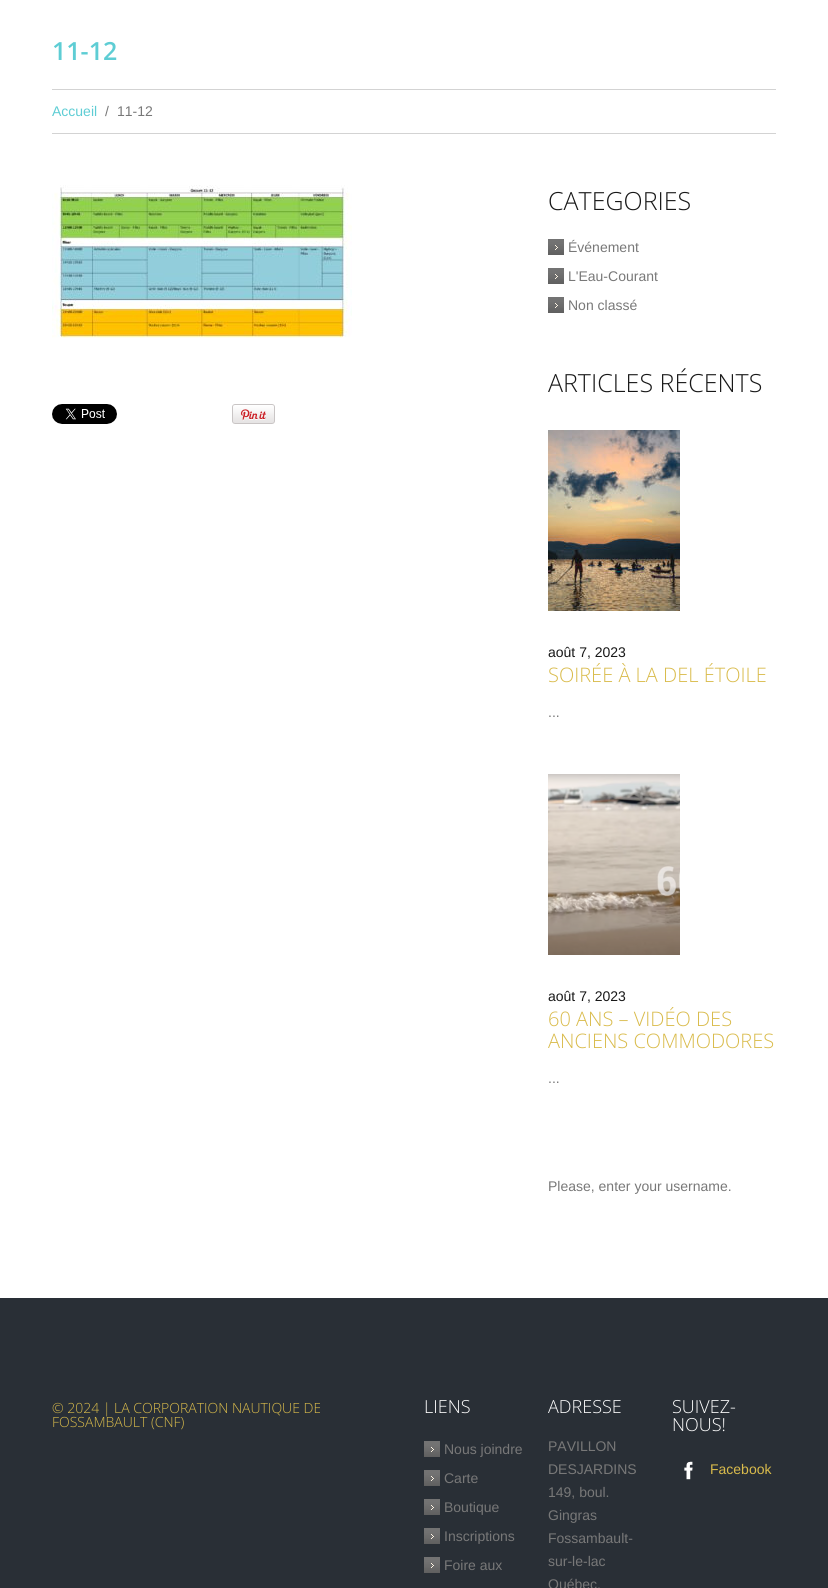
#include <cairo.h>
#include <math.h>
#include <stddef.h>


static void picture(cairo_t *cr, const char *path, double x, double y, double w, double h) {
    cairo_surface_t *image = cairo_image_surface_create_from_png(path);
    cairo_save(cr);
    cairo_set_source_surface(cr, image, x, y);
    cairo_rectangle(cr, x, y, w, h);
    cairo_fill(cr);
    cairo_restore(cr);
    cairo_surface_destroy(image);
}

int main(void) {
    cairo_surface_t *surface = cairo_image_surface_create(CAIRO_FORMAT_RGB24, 828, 1588);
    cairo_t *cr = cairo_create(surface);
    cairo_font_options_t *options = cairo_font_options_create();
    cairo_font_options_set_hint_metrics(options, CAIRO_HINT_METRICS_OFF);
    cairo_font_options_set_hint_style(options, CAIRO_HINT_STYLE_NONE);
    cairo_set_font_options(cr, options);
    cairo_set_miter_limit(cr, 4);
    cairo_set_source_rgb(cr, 1, 1, 1);
    cairo_paint(cr);
    cairo_select_font_face(cr, "Open Sans SemiBold", CAIRO_FONT_SLANT_NORMAL, CAIRO_FONT_WEIGHT_NORMAL);
    cairo_set_font_size(cr, 25);
    cairo_set_source_rgb(cr, 0.369, 0.804, 0.831);
    cairo_move_to(cr, 52, 60);
    cairo_show_text(cr, "11-12");
    cairo_set_source_rgb(cr, 0.827, 0.827, 0.827);
    cairo_rectangle(cr, 52, 89, 724, 1);
    cairo_fill(cr);
    cairo_rectangle(cr, 52, 133, 724, 1);
    cairo_fill(cr);
    cairo_select_font_face(cr, "Liberation Sans", CAIRO_FONT_SLANT_NORMAL, CAIRO_FONT_WEIGHT_NORMAL);
    cairo_set_font_size(cr, 14);
    cairo_set_source_rgb(cr, 0.369, 0.804, 0.831);
    cairo_move_to(cr, 52, 116);
    cairo_show_text(cr, "Accueil");
    cairo_set_source_rgb(cr, 0.471, 0.471, 0.471);
    cairo_move_to(cr, 105, 116);
    cairo_show_text(cr, "/");
    cairo_move_to(cr, 117, 116);
    cairo_show_text(cr, "11-12");
    picture(cr, "img1.png", 52, 185, 300, 153);
    picture(cr, "img2.png", 52, 404, 65, 20);
    picture(cr, "img3.png", 232, 404, 43, 20);
    cairo_select_font_face(cr, "Open Sans Light", CAIRO_FONT_SLANT_NORMAL, CAIRO_FONT_WEIGHT_NORMAL);
    cairo_set_font_size(cr, 25);
    cairo_set_source_rgb(cr, 0.094, 0.094, 0.094);
    cairo_move_to(cr, 548, 210);
    cairo_show_text(cr, "CATEGORIES");
    picture(cr, "img4.png", 548, 239, 16, 16);
    cairo_select_font_face(cr, "Liberation Sans", CAIRO_FONT_SLANT_NORMAL, CAIRO_FONT_WEIGHT_NORMAL);
    cairo_set_font_size(cr, 14);
    cairo_set_source_rgb(cr, 0.471, 0.471, 0.471);
    cairo_move_to(cr, 568, 252);
    cairo_show_text(cr, "Événement");
    picture(cr, "img4.png", 548, 268, 16, 16);
    cairo_move_to(cr, 568, 281);
    cairo_show_text(cr, "L'Eau-Courant");
    picture(cr, "img4.png", 548, 297, 16, 16);
    cairo_move_to(cr, 568, 310);
    cairo_show_text(cr, "Non classé");
    cairo_select_font_face(cr, "Open Sans Light", CAIRO_FONT_SLANT_NORMAL, CAIRO_FONT_WEIGHT_NORMAL);
    cairo_set_font_size(cr, 25);
    cairo_set_source_rgb(cr, 0.094, 0.094, 0.094);
    cairo_move_to(cr, 548, 392);
    cairo_show_text(cr, "ARTICLES RÉCENTS");
    picture(cr, "img5.png", 548, 430, 132, 181);
    cairo_select_font_face(cr, "Liberation Sans", CAIRO_FONT_SLANT_NORMAL, CAIRO_FONT_WEIGHT_NORMAL);
    cairo_set_font_size(cr, 14);
    cairo_move_to(cr, 548, 657);
    cairo_show_text(cr, "août 7, 2023");
    cairo_select_font_face(cr, "Open Sans Light", CAIRO_FONT_SLANT_NORMAL, CAIRO_FONT_WEIGHT_NORMAL);
    cairo_set_font_size(cr, 20);
    cairo_set_source_rgb(cr, 0.851, 0.733, 0.294);
    cairo_move_to(cr, 548, 682);
    cairo_show_text(cr, "SOIRÉE À LA DEL ÉTOILE");
    cairo_select_font_face(cr, "Liberation Sans", CAIRO_FONT_SLANT_NORMAL, CAIRO_FONT_WEIGHT_NORMAL);
    cairo_set_font_size(cr, 14);
    cairo_set_source_rgb(cr, 0.471, 0.471, 0.471);
    cairo_move_to(cr, 548, 717);
    cairo_show_text(cr, "...");
    picture(cr, "img6.png", 548, 774, 132, 181);
    cairo_set_source_rgb(cr, 0.094, 0.094, 0.094);
    cairo_move_to(cr, 548, 1001);
    cairo_show_text(cr, "août 7, 2023");
    cairo_select_font_face(cr, "Open Sans Light", CAIRO_FONT_SLANT_NORMAL, CAIRO_FONT_WEIGHT_NORMAL);
    cairo_set_font_size(cr, 20);
    cairo_set_source_rgb(cr, 0.851, 0.733, 0.294);
    cairo_move_to(cr, 548, 1026);
    cairo_show_text(cr, "60 ANS – VIDÉO DES");
    cairo_move_to(cr, 548, 1048);
    cairo_show_text(cr, "ANCIENS COMMODORES");
    cairo_select_font_face(cr, "Liberation Sans", CAIRO_FONT_SLANT_NORMAL, CAIRO_FONT_WEIGHT_NORMAL);
    cairo_set_font_size(cr, 14);
    cairo_set_source_rgb(cr, 0.471, 0.471, 0.471);
    cairo_move_to(cr, 548, 1083);
    cairo_show_text(cr, "...");
    cairo_move_to(cr, 548, 1191);
    cairo_show_text(cr, "Please, enter your username.");
    cairo_set_source_rgb(cr, 0.161, 0.184, 0.212);
    cairo_rectangle(cr, 0, 1298, 828, 290);
    cairo_fill(cr);
    cairo_select_font_face(cr, "Open Sans Light", CAIRO_FONT_SLANT_NORMAL, CAIRO_FONT_WEIGHT_NORMAL);
    cairo_set_source_rgb(cr, 0.851, 0.733, 0.294);
    cairo_move_to(cr, 52, 1413);
    cairo_show_text(cr, "© 2024 | LA CORPORATION NAUTIQUE DE");
    cairo_move_to(cr, 52, 1427);
    cairo_show_text(cr, "FOSSAMBAULT (CNF)");
    cairo_set_font_size(cr, 18);
    cairo_set_source_rgb(cr, 1, 1, 1);
    cairo_move_to(cr, 424, 1413);
    cairo_show_text(cr, "LIENS");
    picture(cr, "img4.png", 424, 1441, 16, 16);
    cairo_select_font_face(cr, "Liberation Sans", CAIRO_FONT_SLANT_NORMAL, CAIRO_FONT_WEIGHT_NORMAL);
    cairo_set_font_size(cr, 14);
    cairo_set_source_rgb(cr, 0.471, 0.471, 0.471);
    cairo_move_to(cr, 444, 1454);
    cairo_show_text(cr, "Nous joindre");
    picture(cr, "img4.png", 424, 1470, 16, 16);
    cairo_move_to(cr, 444, 1483);
    cairo_show_text(cr, "Carte");
    picture(cr, "img4.png", 424, 1499, 16, 16);
    cairo_move_to(cr, 444, 1512);
    cairo_show_text(cr, "Boutique");
    picture(cr, "img4.png", 424, 1528, 16, 16);
    cairo_move_to(cr, 444, 1541);
    cairo_show_text(cr, "Inscriptions");
    picture(cr, "img4.png", 424, 1557, 16, 16);
    cairo_move_to(cr, 444, 1570);
    cairo_show_text(cr, "Foire aux");
    cairo_select_font_face(cr, "Open Sans Light", CAIRO_FONT_SLANT_NORMAL, CAIRO_FONT_WEIGHT_NORMAL);
    cairo_set_font_size(cr, 18);
    cairo_set_source_rgb(cr, 1, 1, 1);
    cairo_move_to(cr, 548, 1413);
    cairo_show_text(cr, "ADRESSE");
    cairo_select_font_face(cr, "Liberation Sans", CAIRO_FONT_SLANT_NORMAL, CAIRO_FONT_WEIGHT_NORMAL);
    cairo_set_font_size(cr, 14);
    cairo_set_source_rgb(cr, 0.471, 0.471, 0.471);
    cairo_move_to(cr, 548, 1451);
    cairo_show_text(cr, "PAVILLON");
    cairo_move_to(cr, 548, 1474);
    cairo_show_text(cr, "DESJARDINS");
    cairo_move_to(cr, 548, 1497);
    cairo_show_text(cr, "149, boul.");
    cairo_move_to(cr, 548, 1520);
    cairo_show_text(cr, "Gingras");
    cairo_move_to(cr, 548, 1543);
    cairo_show_text(cr, "Fossambault-");
    cairo_move_to(cr, 548, 1566);
    cairo_show_text(cr, "sur-le-lac");
    cairo_move_to(cr, 548, 1589);
    cairo_show_text(cr, "Québec,");
    cairo_select_font_face(cr, "Open Sans Light", CAIRO_FONT_SLANT_NORMAL, CAIRO_FONT_WEIGHT_NORMAL);
    cairo_set_font_size(cr, 18);
    cairo_set_source_rgb(cr, 1, 1, 1);
    cairo_move_to(cr, 672, 1413);
    cairo_show_text(cr, "SUIVEZ-");
    cairo_move_to(cr, 672, 1431);
    cairo_show_text(cr, "NOUS!");
    picture(cr, "img7.png", 684, 1461, 9, 19);
    cairo_select_font_face(cr, "Liberation Sans", CAIRO_FONT_SLANT_NORMAL, CAIRO_FONT_WEIGHT_NORMAL);
    cairo_set_font_size(cr, 14);
    cairo_set_source_rgb(cr, 0.851, 0.733, 0.294);
    cairo_move_to(cr, 710, 1474);
    cairo_show_text(cr, "Facebook");
    cairo_surface_write_to_png(surface, "page.png");
    cairo_font_options_destroy(options);
    cairo_destroy(cr);
    cairo_surface_destroy(surface);
    return 0;
}
